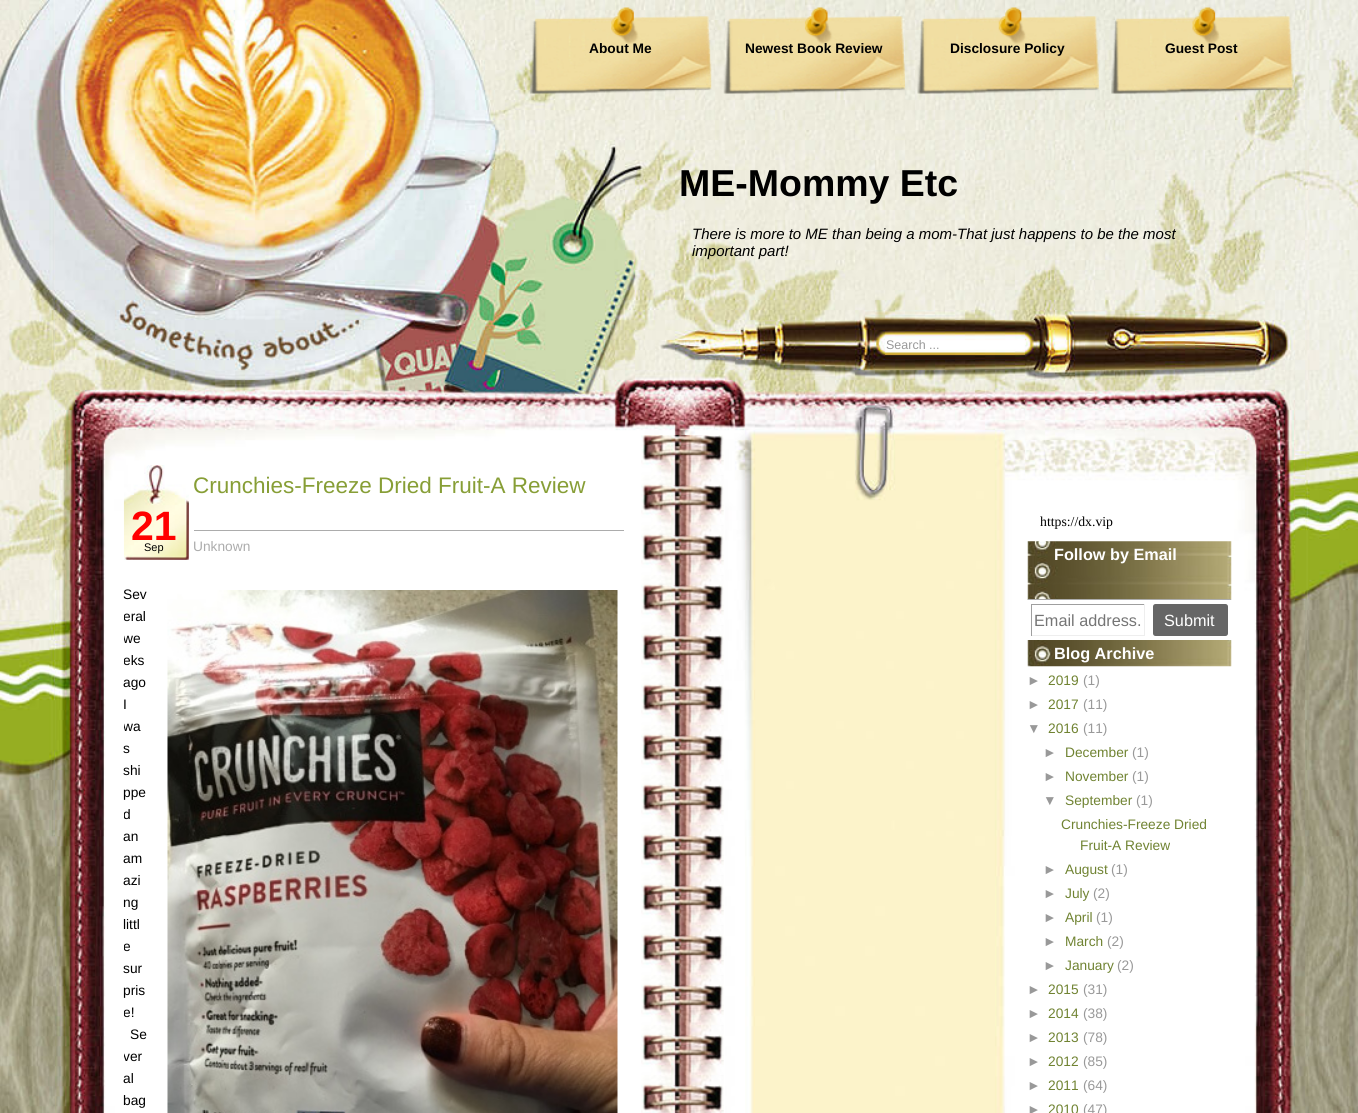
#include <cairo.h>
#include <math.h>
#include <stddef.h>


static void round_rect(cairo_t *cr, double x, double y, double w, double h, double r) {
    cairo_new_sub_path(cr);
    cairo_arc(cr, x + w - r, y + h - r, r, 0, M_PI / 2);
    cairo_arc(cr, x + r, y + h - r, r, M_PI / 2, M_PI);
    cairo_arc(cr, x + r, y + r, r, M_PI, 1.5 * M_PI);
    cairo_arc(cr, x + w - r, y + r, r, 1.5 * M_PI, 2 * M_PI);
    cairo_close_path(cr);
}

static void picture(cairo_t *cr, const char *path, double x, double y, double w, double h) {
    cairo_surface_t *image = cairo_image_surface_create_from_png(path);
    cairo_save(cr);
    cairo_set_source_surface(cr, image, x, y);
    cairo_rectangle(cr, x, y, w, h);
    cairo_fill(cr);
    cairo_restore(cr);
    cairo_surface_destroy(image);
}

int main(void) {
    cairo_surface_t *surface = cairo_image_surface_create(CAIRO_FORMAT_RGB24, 1358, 1113);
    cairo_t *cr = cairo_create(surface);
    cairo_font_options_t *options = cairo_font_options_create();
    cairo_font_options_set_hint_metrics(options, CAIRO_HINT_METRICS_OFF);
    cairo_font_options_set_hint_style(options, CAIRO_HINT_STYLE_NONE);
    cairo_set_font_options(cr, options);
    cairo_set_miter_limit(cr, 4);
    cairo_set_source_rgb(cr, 1, 1, 1);
    cairo_paint(cr);
    picture(cr, "img1.png", 0, 836, 1358, 277);
    picture(cr, "img2.png", 0, 0, 1358, 837);
    picture(cr, "img3.png", 55, 836, 1250, 277);
    picture(cr, "img4.png", 55, 0, 1250, 837);
    picture(cr, "img5.png", 530, 7, 182, 87);
    cairo_select_font_face(cr, "Liberation Sans", CAIRO_FONT_SLANT_NORMAL, CAIRO_FONT_WEIGHT_BOLD);
    cairo_set_font_size(cr, 13.75);
    cairo_set_source_rgb(cr, 0, 0, 0);
    cairo_move_to(cr, 589, 53);
    cairo_show_text(cr, "About Me");
    picture(cr, "img6.png", 723, 7, 182, 87);
    cairo_move_to(cr, 745, 53);
    cairo_show_text(cr, "Newest Book Review");
    picture(cr, "img7.png", 917, 7, 182, 87);
    cairo_move_to(cr, 950, 53);
    cairo_show_text(cr, "Disclosure Policy");
    picture(cr, "img8.png", 1111, 7, 182, 87);
    cairo_move_to(cr, 1165, 53);
    cairo_show_text(cr, "Guest Post");
    cairo_set_font_size(cr, 37.5);
    cairo_move_to(cr, 679, 196);
    cairo_show_text(cr, "ME-Mommy Etc");
    cairo_select_font_face(cr, "Liberation Sans", CAIRO_FONT_SLANT_ITALIC, CAIRO_FONT_WEIGHT_NORMAL);
    cairo_set_font_size(cr, 15);
    cairo_move_to(cr, 692, 239);
    cairo_show_text(cr, "There is more to ME than being a mom-That just happens to be the most");
    cairo_move_to(cr, 692, 256);
    cairo_show_text(cr, "important part!");
    cairo_select_font_face(cr, "Liberation Sans", CAIRO_FONT_SLANT_NORMAL, CAIRO_FONT_WEIGHT_NORMAL);
    cairo_set_font_size(cr, 12.5);
    cairo_set_source_rgb(cr, 0.6, 0.6, 0.6);
    cairo_move_to(cr, 886, 349);
    cairo_show_text(cr, "Search ...");
    picture(cr, "img9.png", 641, 435, 83, 678);
    picture(cr, "img10.png", 123, 465, 66, 95);
    cairo_set_source_rgb(cr, 0.675, 0.675, 0.675);
    cairo_rectangle(cr, 194, 530, 430, 1);
    cairo_fill(cr);
    cairo_set_font_size(cr, 22.5);
    cairo_set_source_rgb(cr, 0.529, 0.62, 0.212);
    cairo_move_to(cr, 193, 493);
    cairo_show_text(cr, "Crunchies-Freeze Dried Fruit-A Review");
    cairo_select_font_face(cr, "Liberation Sans", CAIRO_FONT_SLANT_NORMAL, CAIRO_FONT_WEIGHT_BOLD);
    cairo_set_font_size(cr, 41);
    cairo_set_source_rgb(cr, 1, 0, 0);
    cairo_move_to(cr, 131, 540);
    cairo_show_text(cr, "21");
    cairo_select_font_face(cr, "Liberation Sans", CAIRO_FONT_SLANT_NORMAL, CAIRO_FONT_WEIGHT_NORMAL);
    cairo_set_font_size(cr, 11);
    cairo_set_source_rgb(cr, 0, 0, 0);
    cairo_move_to(cr, 144, 551);
    cairo_show_text(cr, "Sep");
    cairo_set_font_size(cr, 13.75);
    cairo_set_source_rgb(cr, 0.675, 0.675, 0.675);
    cairo_move_to(cr, 193, 551);
    cairo_show_text(cr, "Unknown");
    cairo_set_source_rgb(cr, 0, 0, 0);
    cairo_move_to(cr, 123, 599);
    cairo_show_text(cr, "Sev");
    picture(cr, "img11.png", 167, 590, 451, 523);
    cairo_save(cr);
    cairo_rectangle(cr, 124, 465, 500, 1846);
    cairo_clip(cr);
    cairo_move_to(cr, 123, 621);
    cairo_show_text(cr, "eral");
    cairo_move_to(cr, 123, 643);
    cairo_show_text(cr, "we");
    cairo_move_to(cr, 123, 665);
    cairo_show_text(cr, "eks");
    cairo_restore(cr);
    cairo_move_to(cr, 123, 687);
    cairo_show_text(cr, "ago");
    cairo_move_to(cr, 123, 709);
    cairo_show_text(cr, "I");
    cairo_save(cr);
    cairo_rectangle(cr, 124, 465, 500, 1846);
    cairo_clip(cr);
    cairo_move_to(cr, 123, 731);
    cairo_show_text(cr, "wa");
    cairo_restore(cr);
    cairo_move_to(cr, 123, 753);
    cairo_show_text(cr, "s");
    cairo_move_to(cr, 123, 775);
    cairo_show_text(cr, "shi");
    cairo_move_to(cr, 123, 797);
    cairo_show_text(cr, "ppe");
    cairo_save(cr);
    cairo_rectangle(cr, 124, 465, 500, 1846);
    cairo_clip(cr);
    cairo_move_to(cr, 123, 819);
    cairo_show_text(cr, "d");
    cairo_restore(cr);
    cairo_move_to(cr, 123, 841);
    cairo_show_text(cr, "an");
    cairo_move_to(cr, 123, 863);
    cairo_show_text(cr, "am");
    cairo_move_to(cr, 123, 885);
    cairo_show_text(cr, "azi");
    cairo_move_to(cr, 123, 907);
    cairo_show_text(cr, "ng");
    cairo_move_to(cr, 123, 929);
    cairo_show_text(cr, "littl");
    cairo_save(cr);
    cairo_rectangle(cr, 124, 465, 500, 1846);
    cairo_clip(cr);
    cairo_move_to(cr, 123, 951);
    cairo_show_text(cr, "e");
    cairo_restore(cr);
    cairo_move_to(cr, 123, 973);
    cairo_show_text(cr, "sur");
    cairo_move_to(cr, 123, 995);
    cairo_show_text(cr, "pris");
    cairo_save(cr);
    cairo_rectangle(cr, 124, 465, 500, 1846);
    cairo_clip(cr);
    cairo_move_to(cr, 123, 1017);
    cairo_show_text(cr, "e!");
    cairo_restore(cr);
    cairo_move_to(cr, 130, 1039);
    cairo_show_text(cr, "Se");
    cairo_save(cr);
    cairo_rectangle(cr, 124, 465, 500, 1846);
    cairo_clip(cr);
    cairo_move_to(cr, 123, 1061);
    cairo_show_text(cr, "ver");
    cairo_restore(cr);
    cairo_move_to(cr, 123, 1083);
    cairo_show_text(cr, "al");
    cairo_move_to(cr, 123, 1105);
    cairo_show_text(cr, "bag");
    cairo_select_font_face(cr, "Liberation Serif", CAIRO_FONT_SLANT_NORMAL, CAIRO_FONT_WEIGHT_NORMAL);
    cairo_move_to(cr, 1040, 526);
    cairo_show_text(cr, "https://dx.vip");
    picture(cr, "img12.png", 1027, 541, 205, 59);
    cairo_set_source_rgb(cr, 0.675, 0.675, 0.675);
    cairo_rectangle(cr, 1028, 599, 203, 1);
    cairo_fill(cr);
    cairo_select_font_face(cr, "Liberation Sans", CAIRO_FONT_SLANT_NORMAL, CAIRO_FONT_WEIGHT_BOLD);
    cairo_set_font_size(cr, 16.25);
    cairo_set_source_rgb(cr, 1, 1, 1);
    cairo_move_to(cr, 1054, 560);
    cairo_show_text(cr, "Follow by Email");
    cairo_set_source_rgb(cr, 0.624, 0.624, 0.624);
    cairo_rectangle(cr, 1031, 604, 114, 1);
    cairo_fill(cr);
    cairo_set_source_rgb(cr, 0.933, 0.933, 0.933);
    cairo_rectangle(cr, 1144, 604, 1, 32);
    cairo_fill(cr);
    cairo_rectangle(cr, 1031, 635, 114, 1);
    cairo_fill(cr);
    cairo_set_source_rgb(cr, 0.624, 0.624, 0.624);
    cairo_rectangle(cr, 1031, 604, 1, 32);
    cairo_fill(cr);
    cairo_select_font_face(cr, "Liberation Sans", CAIRO_FONT_SLANT_NORMAL, CAIRO_FONT_WEIGHT_NORMAL);
    cairo_set_source_rgb(cr, 0.459, 0.459, 0.459);
    cairo_move_to(cr, 1034, 626);
    cairo_show_text(cr, "Email address.");
    cairo_set_source_rgb(cr, 0.4, 0.4, 0.4);
    round_rect(cr, 1153, 604, 75, 32, 2.5);
    cairo_fill(cr);
    cairo_set_source_rgb(cr, 1, 1, 1);
    cairo_move_to(cr, 1164, 626);
    cairo_show_text(cr, "Submit");
    picture(cr, "img13.png", 1027, 640, 205, 27);
    cairo_select_font_face(cr, "Liberation Sans", CAIRO_FONT_SLANT_NORMAL, CAIRO_FONT_WEIGHT_BOLD);
    cairo_move_to(cr, 1054, 659);
    cairo_show_text(cr, "Blog Archive");
    cairo_select_font_face(cr, "Liberation Sans", CAIRO_FONT_SLANT_NORMAL, CAIRO_FONT_WEIGHT_NORMAL);
    cairo_set_font_size(cr, 13.75);
    cairo_set_source_rgb(cr, 0.6, 0.6, 0.6);
    cairo_move_to(cr, 1027, 685);
    cairo_show_text(cr, "►");
    cairo_set_source_rgb(cr, 0.439, 0.514, 0.196);
    cairo_move_to(cr, 1048, 685);
    cairo_show_text(cr, "2019");
    cairo_set_source_rgb(cr, 0.6, 0.6, 0.6);
    cairo_move_to(cr, 1083, 685);
    cairo_show_text(cr, "(1)");
    cairo_move_to(cr, 1027, 709);
    cairo_show_text(cr, "►");
    cairo_set_source_rgb(cr, 0.439, 0.514, 0.196);
    cairo_move_to(cr, 1048, 709);
    cairo_show_text(cr, "2017");
    cairo_set_source_rgb(cr, 0.6, 0.6, 0.6);
    cairo_move_to(cr, 1083, 709);
    cairo_show_text(cr, "(11)");
    cairo_move_to(cr, 1027, 733);
    cairo_show_text(cr, "▼");
    cairo_set_source_rgb(cr, 0.439, 0.514, 0.196);
    cairo_move_to(cr, 1048, 733);
    cairo_show_text(cr, "2016");
    cairo_set_source_rgb(cr, 0.6, 0.6, 0.6);
    cairo_move_to(cr, 1083, 733);
    cairo_show_text(cr, "(11)");
    cairo_move_to(cr, 1043, 757);
    cairo_show_text(cr, "►");
    cairo_set_source_rgb(cr, 0.439, 0.514, 0.196);
    cairo_move_to(cr, 1065, 757);
    cairo_show_text(cr, "December");
    cairo_set_source_rgb(cr, 0.6, 0.6, 0.6);
    cairo_move_to(cr, 1132, 757);
    cairo_show_text(cr, "(1)");
    cairo_move_to(cr, 1043, 781);
    cairo_show_text(cr, "►");
    cairo_set_source_rgb(cr, 0.439, 0.514, 0.196);
    cairo_move_to(cr, 1065, 781);
    cairo_show_text(cr, "November");
    cairo_set_source_rgb(cr, 0.6, 0.6, 0.6);
    cairo_move_to(cr, 1132, 781);
    cairo_show_text(cr, "(1)");
    cairo_move_to(cr, 1043, 805);
    cairo_show_text(cr, "▼");
    cairo_set_source_rgb(cr, 0.439, 0.514, 0.196);
    cairo_move_to(cr, 1065, 805);
    cairo_show_text(cr, "September");
    cairo_set_source_rgb(cr, 0.6, 0.6, 0.6);
    cairo_move_to(cr, 1136, 805);
    cairo_show_text(cr, "(1)");
    cairo_set_source_rgb(cr, 0.439, 0.514, 0.196);
    cairo_move_to(cr, 1061, 829);
    cairo_show_text(cr, "Crunchies-Freeze Dried");
    cairo_move_to(cr, 1080, 850);
    cairo_show_text(cr, "Fruit-A Review");
    cairo_set_source_rgb(cr, 0.6, 0.6, 0.6);
    cairo_move_to(cr, 1043, 874);
    cairo_show_text(cr, "►");
    cairo_set_source_rgb(cr, 0.439, 0.514, 0.196);
    cairo_move_to(cr, 1065, 874);
    cairo_show_text(cr, "August");
    cairo_set_source_rgb(cr, 0.6, 0.6, 0.6);
    cairo_move_to(cr, 1111, 874);
    cairo_show_text(cr, "(1)");
    cairo_move_to(cr, 1043, 898);
    cairo_show_text(cr, "►");
    cairo_set_source_rgb(cr, 0.439, 0.514, 0.196);
    cairo_move_to(cr, 1065, 898);
    cairo_show_text(cr, "July");
    cairo_set_source_rgb(cr, 0.6, 0.6, 0.6);
    cairo_move_to(cr, 1093, 898);
    cairo_show_text(cr, "(2)");
    cairo_move_to(cr, 1043, 922);
    cairo_show_text(cr, "►");
    cairo_set_source_rgb(cr, 0.439, 0.514, 0.196);
    cairo_move_to(cr, 1065, 922);
    cairo_show_text(cr, "April");
    cairo_set_source_rgb(cr, 0.6, 0.6, 0.6);
    cairo_move_to(cr, 1096, 922);
    cairo_show_text(cr, "(1)");
    cairo_move_to(cr, 1043, 946);
    cairo_show_text(cr, "►");
    cairo_set_source_rgb(cr, 0.439, 0.514, 0.196);
    cairo_move_to(cr, 1065, 946);
    cairo_show_text(cr, "March");
    cairo_set_source_rgb(cr, 0.6, 0.6, 0.6);
    cairo_move_to(cr, 1107, 946);
    cairo_show_text(cr, "(2)");
    cairo_move_to(cr, 1043, 970);
    cairo_show_text(cr, "►");
    cairo_set_source_rgb(cr, 0.439, 0.514, 0.196);
    cairo_move_to(cr, 1065, 970);
    cairo_show_text(cr, "January");
    cairo_set_source_rgb(cr, 0.6, 0.6, 0.6);
    cairo_move_to(cr, 1117, 970);
    cairo_show_text(cr, "(2)");
    cairo_move_to(cr, 1027, 994);
    cairo_show_text(cr, "►");
    cairo_set_source_rgb(cr, 0.439, 0.514, 0.196);
    cairo_move_to(cr, 1048, 994);
    cairo_show_text(cr, "2015");
    cairo_set_source_rgb(cr, 0.6, 0.6, 0.6);
    cairo_move_to(cr, 1083, 994);
    cairo_show_text(cr, "(31)");
    cairo_move_to(cr, 1027, 1018);
    cairo_show_text(cr, "►");
    cairo_set_source_rgb(cr, 0.439, 0.514, 0.196);
    cairo_move_to(cr, 1048, 1018);
    cairo_show_text(cr, "2014");
    cairo_set_source_rgb(cr, 0.6, 0.6, 0.6);
    cairo_move_to(cr, 1083, 1018);
    cairo_show_text(cr, "(38)");
    cairo_move_to(cr, 1027, 1042);
    cairo_show_text(cr, "►");
    cairo_set_source_rgb(cr, 0.439, 0.514, 0.196);
    cairo_move_to(cr, 1048, 1042);
    cairo_show_text(cr, "2013");
    cairo_set_source_rgb(cr, 0.6, 0.6, 0.6);
    cairo_move_to(cr, 1083, 1042);
    cairo_show_text(cr, "(78)");
    cairo_move_to(cr, 1027, 1066);
    cairo_show_text(cr, "►");
    cairo_set_source_rgb(cr, 0.439, 0.514, 0.196);
    cairo_move_to(cr, 1048, 1066);
    cairo_show_text(cr, "2012");
    cairo_set_source_rgb(cr, 0.6, 0.6, 0.6);
    cairo_move_to(cr, 1083, 1066);
    cairo_show_text(cr, "(85)");
    cairo_move_to(cr, 1027, 1090);
    cairo_show_text(cr, "►");
    cairo_set_source_rgb(cr, 0.439, 0.514, 0.196);
    cairo_move_to(cr, 1048, 1090);
    cairo_show_text(cr, "2011");
    cairo_set_source_rgb(cr, 0.6, 0.6, 0.6);
    cairo_move_to(cr, 1083, 1090);
    cairo_show_text(cr, "(64)");
    cairo_move_to(cr, 1027, 1114);
    cairo_show_text(cr, "►");
    cairo_set_source_rgb(cr, 0.439, 0.514, 0.196);
    cairo_move_to(cr, 1048, 1114);
    cairo_show_text(cr, "2010");
    cairo_set_source_rgb(cr, 0.6, 0.6, 0.6);
    cairo_move_to(cr, 1083, 1114);
    cairo_show_text(cr, "(47)");
    cairo_surface_write_to_png(surface, "page.png");
    cairo_font_options_destroy(options);
    cairo_destroy(cr);
    cairo_surface_destroy(surface);
    return 0;
}
